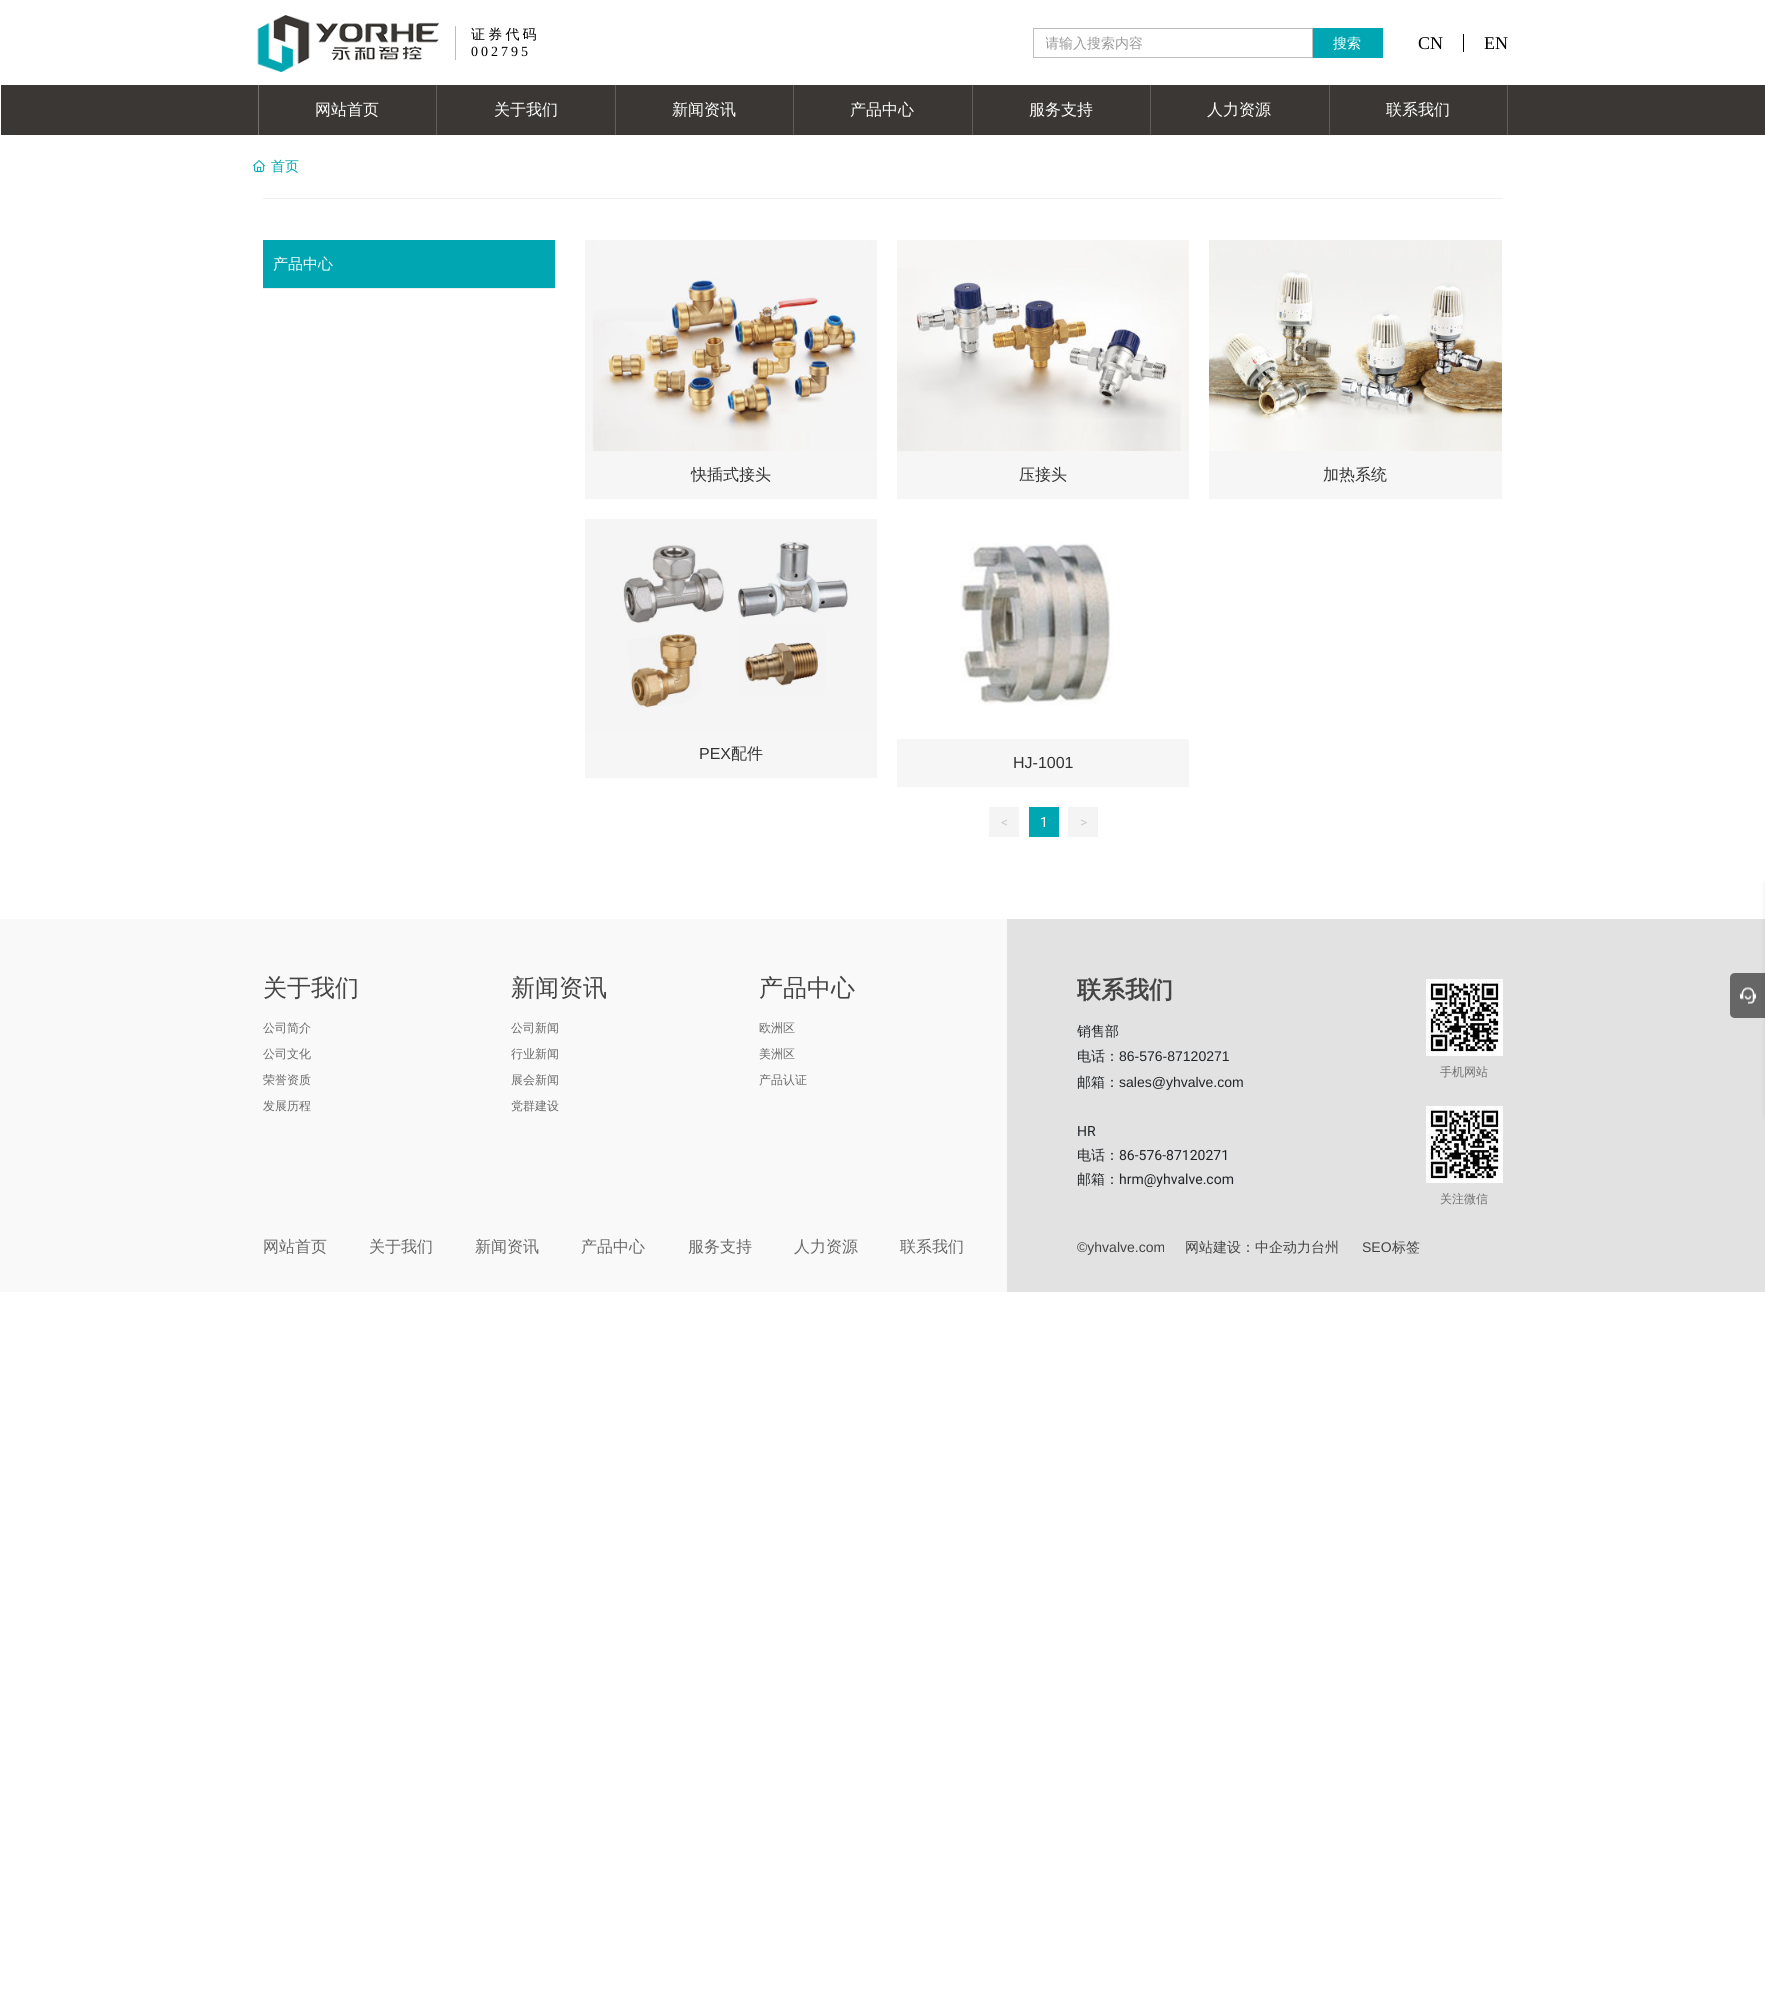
#include <cairo.h>
#include <math.h>
#include <stddef.h>


static void spaced_text(cairo_t *cr, double x, double y, const char *s, double letter, double word) {
    cairo_move_to(cr, x, y);
    while (*s) {
        char ch[5] = {0};
        int n = 0;
        do ch[n++] = *s++; while ((*s & 0xC0) == 0x80);
        cairo_show_text(cr, ch);
        cairo_rel_move_to(cr, letter + word * (*ch == ' '), 0);
    }
}

static void round_rect(cairo_t *cr, double x, double y, double w, double h, double r) {
    cairo_new_sub_path(cr);
    cairo_arc(cr, x + w - r, y + h - r, r, 0, M_PI / 2);
    cairo_arc(cr, x + r, y + h - r, r, M_PI / 2, M_PI);
    cairo_arc(cr, x + r, y + r, r, M_PI, 1.5 * M_PI);
    cairo_arc(cr, x + w - r, y + r, r, 1.5 * M_PI, 2 * M_PI);
    cairo_close_path(cr);
}

static void shadow(cairo_t *cr, double x, double y, double w, double h, double r, double blur, double alpha) {
    cairo_push_group_with_content(cr, CAIRO_CONTENT_ALPHA);
    cairo_set_operator(cr, CAIRO_OPERATOR_SOURCE);
    for (int i = 15; i >= -15 && fmin(w, h) + blur * i / 3 > 0; i -= 2) {
        double e = blur * i / 6;
        cairo_set_source_rgba(cr, 0, 0, 0, alpha * erfc((i - 1) / 8.5) / 2);
        round_rect(cr, x - e, y - e, w + 2 * e, h + 2 * e, fmax(0, fmin(r + e + blur * .6, fmin(w, h) / 2 + e)));
        cairo_fill(cr);
    }
    cairo_pattern_t *soft = cairo_pop_group(cr);
    cairo_mask(cr, soft);
    cairo_pattern_destroy(soft);
}

static void picture(cairo_t *cr, const char *path, double x, double y, double w, double h) {
    cairo_surface_t *image = cairo_image_surface_create_from_png(path);
    cairo_save(cr);
    cairo_set_source_surface(cr, image, x, y);
    cairo_rectangle(cr, x, y, w, h);
    cairo_fill(cr);
    cairo_restore(cr);
    cairo_surface_destroy(image);
}

int main(void) {
    cairo_surface_t *surface = cairo_image_surface_create(CAIRO_FORMAT_RGB24, 1765, 1990);
    cairo_t *cr = cairo_create(surface);
    cairo_font_options_t *options = cairo_font_options_create();
    cairo_font_options_set_hint_metrics(options, CAIRO_HINT_METRICS_OFF);
    cairo_font_options_set_hint_style(options, CAIRO_HINT_STYLE_NONE);
    cairo_set_font_options(cr, options);
    cairo_set_miter_limit(cr, 4);
    cairo_set_source_rgb(cr, 1, 1, 1);
    cairo_paint(cr);
    picture(cr, "img1.png", 257, 15, 183, 57);
    cairo_set_source_rgb(cr, 0.741, 0.741, 0.741);
    cairo_rectangle(cr, 455, 26, 1, 34);
    cairo_fill(cr);
    cairo_select_font_face(cr, "WenQuanYi Zen Hei Medium", CAIRO_FONT_SLANT_NORMAL, CAIRO_FONT_WEIGHT_NORMAL);
    cairo_set_font_size(cr, 14);
    cairo_set_source_rgb(cr, 0, 0, 0);
    spaced_text(cr, 471, 39, "证 券 代 码", 0, -1);
    cairo_select_font_face(cr, "Liberation Serif", CAIRO_FONT_SLANT_NORMAL, CAIRO_FONT_WEIGHT_NORMAL);
    spaced_text(cr, 471, 56, "002795", 3, 0);
    cairo_rectangle(cr, 1033.5, 28.5, 279, 29);
    cairo_set_source_rgb(cr, 0.741, 0.741, 0.741);
    cairo_set_line_width(cr, 1);
    cairo_stroke(cr);
    cairo_save(cr);
    cairo_rectangle(cr, 1046, 35, 254, 18);
    cairo_clip(cr);
    cairo_select_font_face(cr, "WenQuanYi Zen Hei Medium", CAIRO_FONT_SLANT_NORMAL, CAIRO_FONT_WEIGHT_NORMAL);
    cairo_set_source_rgb(cr, 0.6, 0.6, 0.6);
    cairo_move_to(cr, 1045, 48);
    cairo_show_text(cr, "请输入搜索内容");
    cairo_restore(cr);
    cairo_set_source_rgb(cr, 0, 0.655, 0.698);
    cairo_rectangle(cr, 1313, 28, 70, 30);
    cairo_fill(cr);
    cairo_select_font_face(cr, "WenQuanYi Zen Hei Medium", CAIRO_FONT_SLANT_NORMAL, CAIRO_FONT_WEIGHT_NORMAL);
    cairo_set_source_rgb(cr, 1, 1, 1);
    cairo_move_to(cr, 1333, 48);
    cairo_show_text(cr, "搜索");
    cairo_select_font_face(cr, "Liberation Serif", CAIRO_FONT_SLANT_NORMAL, CAIRO_FONT_WEIGHT_NORMAL);
    cairo_set_font_size(cr, 18);
    cairo_set_source_rgb(cr, 0, 0, 0);
    cairo_move_to(cr, 1418, 49);
    cairo_show_text(cr, "CN");
    cairo_rectangle(cr, 1463, 34, 1, 18);
    cairo_fill(cr);
    cairo_move_to(cr, 1484, 49);
    cairo_show_text(cr, "EN");
    cairo_set_source_rgb(cr, 0.227, 0.216, 0.204);
    cairo_rectangle(cr, 1, 85, 1764, 50);
    cairo_fill(cr);
    cairo_set_source_rgb(cr, 0.459, 0.451, 0.443);
    cairo_rectangle(cr, 258, 85, 1, 50);
    cairo_fill(cr);
    cairo_set_source_rgb(cr, 0.38, 0.373, 0.365);
    cairo_rectangle(cr, 436, 85, 1, 50);
    cairo_fill(cr);
    cairo_select_font_face(cr, "WenQuanYi Zen Hei Medium", CAIRO_FONT_SLANT_NORMAL, CAIRO_FONT_WEIGHT_NORMAL);
    cairo_set_font_size(cr, 16);
    cairo_set_source_rgb(cr, 1, 1, 1);
    cairo_move_to(cr, 315, 115);
    cairo_show_text(cr, "网站首页");
    cairo_set_source_rgb(cr, 0.38, 0.373, 0.365);
    cairo_rectangle(cr, 615, 85, 1, 50);
    cairo_fill(cr);
    cairo_set_source_rgb(cr, 1, 1, 1);
    cairo_move_to(cr, 494, 115);
    cairo_show_text(cr, "关于我们");
    cairo_set_source_rgb(cr, 0.38, 0.373, 0.365);
    cairo_rectangle(cr, 793, 85, 1, 50);
    cairo_fill(cr);
    cairo_set_source_rgb(cr, 1, 1, 1);
    cairo_move_to(cr, 672, 115);
    cairo_show_text(cr, "新闻资讯");
    cairo_set_source_rgb(cr, 0.38, 0.373, 0.365);
    cairo_rectangle(cr, 972, 85, 1, 50);
    cairo_fill(cr);
    cairo_set_source_rgb(cr, 1, 1, 1);
    cairo_move_to(cr, 850, 115);
    cairo_show_text(cr, "产品中心");
    cairo_set_source_rgb(cr, 0.38, 0.373, 0.365);
    cairo_rectangle(cr, 1150, 85, 1, 50);
    cairo_fill(cr);
    cairo_set_source_rgb(cr, 1, 1, 1);
    cairo_move_to(cr, 1029, 115);
    cairo_show_text(cr, "服务支持");
    cairo_set_source_rgb(cr, 0.38, 0.373, 0.365);
    cairo_rectangle(cr, 1329, 85, 1, 50);
    cairo_fill(cr);
    cairo_set_source_rgb(cr, 1, 1, 1);
    cairo_move_to(cr, 1207, 115);
    cairo_show_text(cr, "人力资源");
    cairo_set_source_rgb(cr, 0.38, 0.373, 0.365);
    cairo_rectangle(cr, 1507, 85, 1, 50);
    cairo_fill(cr);
    cairo_set_source_rgb(cr, 1, 1, 1);
    cairo_move_to(cr, 1386, 115);
    cairo_show_text(cr, "联系我们");
    picture(cr, "img2.png", 253, 160, 12, 12);
    cairo_set_font_size(cr, 14);
    cairo_set_source_rgb(cr, 0, 0.655, 0.698);
    cairo_move_to(cr, 271, 171);
    cairo_show_text(cr, "首页");
    cairo_set_source_rgb(cr, 0.941, 0.941, 0.941);
    cairo_rectangle(cr, 263, 198, 1240, 1);
    cairo_fill(cr);
    cairo_set_source_rgb(cr, 0, 0.655, 0.698);
    cairo_rectangle(cr, 263, 240, 292, 48);
    cairo_fill(cr);
    cairo_set_source_rgb(cr, 0.933, 0.933, 0.933);
    cairo_rectangle(cr, 263, 288, 292, 1);
    cairo_fill(cr);
    cairo_set_font_size(cr, 15);
    cairo_set_source_rgb(cr, 1, 1, 1);
    cairo_move_to(cr, 273, 269);
    cairo_show_text(cr, "产品中心");
    picture(cr, "img3.png", 585, 240, 292, 211);
    cairo_set_source_rgb(cr, 0.961, 0.961, 0.961);
    cairo_rectangle(cr, 585, 451, 292, 48);
    cairo_fill(cr);
    cairo_set_font_size(cr, 16);
    cairo_set_source_rgb(cr, 0.2, 0.2, 0.2);
    cairo_move_to(cr, 691, 480);
    cairo_show_text(cr, "快插式接头");
    picture(cr, "img4.png", 897, 240, 292, 211);
    cairo_set_source_rgb(cr, 0.961, 0.961, 0.961);
    cairo_rectangle(cr, 897, 451, 292, 48);
    cairo_fill(cr);
    cairo_set_source_rgb(cr, 0.2, 0.2, 0.2);
    cairo_move_to(cr, 1019, 480);
    cairo_show_text(cr, "压接头");
    picture(cr, "img5.png", 1209, 240, 293, 211);
    cairo_set_source_rgb(cr, 0.961, 0.961, 0.961);
    cairo_rectangle(cr, 1209, 451, 293, 48);
    cairo_fill(cr);
    cairo_set_source_rgb(cr, 0.2, 0.2, 0.2);
    cairo_move_to(cr, 1323, 480);
    cairo_show_text(cr, "加热系统");
    picture(cr, "img6.png", 585, 519, 292, 211);
    cairo_set_source_rgb(cr, 0.961, 0.961, 0.961);
    cairo_rectangle(cr, 585, 730, 292, 48);
    cairo_fill(cr);
    cairo_select_font_face(cr, "Liberation Sans", CAIRO_FONT_SLANT_NORMAL, CAIRO_FONT_WEIGHT_NORMAL);
    cairo_set_source_rgb(cr, 0.2, 0.2, 0.2);
    cairo_move_to(cr, 699, 759);
    cairo_show_text(cr, "PEX");
    cairo_select_font_face(cr, "WenQuanYi Zen Hei Medium", CAIRO_FONT_SLANT_NORMAL, CAIRO_FONT_WEIGHT_NORMAL);
    cairo_move_to(cr, 731, 759);
    cairo_show_text(cr, "配件");
    picture(cr, "img7.png", 960, 543, 153, 162);
    cairo_set_source_rgb(cr, 0.961, 0.961, 0.961);
    cairo_rectangle(cr, 897, 739, 292, 48);
    cairo_fill(cr);
    cairo_select_font_face(cr, "Liberation Sans", CAIRO_FONT_SLANT_NORMAL, CAIRO_FONT_WEIGHT_NORMAL);
    cairo_set_source_rgb(cr, 0.2, 0.2, 0.2);
    cairo_move_to(cr, 1013, 768);
    cairo_show_text(cr, "HJ-1001");
    cairo_set_source_rgb(cr, 0.957, 0.957, 0.957);
    cairo_rectangle(cr, 989, 807, 30, 30);
    cairo_fill(cr);
    cairo_select_font_face(cr, "Roboto", CAIRO_FONT_SLANT_NORMAL, CAIRO_FONT_WEIGHT_NORMAL);
    cairo_set_font_size(cr, 14);
    cairo_set_source_rgb(cr, 0.8, 0.8, 0.8);
    cairo_move_to(cr, 1001, 827);
    cairo_show_text(cr, "<");
    cairo_set_source_rgb(cr, 0, 0.655, 0.698);
    cairo_rectangle(cr, 1029, 807, 30, 30);
    cairo_fill(cr);
    cairo_set_source_rgb(cr, 1, 1, 1);
    cairo_move_to(cr, 1040, 827);
    cairo_show_text(cr, "1");
    cairo_set_source_rgb(cr, 0.957, 0.957, 0.957);
    cairo_rectangle(cr, 1068, 807, 30, 30);
    cairo_fill(cr);
    cairo_set_source_rgb(cr, 0.8, 0.8, 0.8);
    cairo_move_to(cr, 1080, 827);
    cairo_show_text(cr, ">");
    cairo_set_source_rgb(cr, 0.976, 0.976, 0.976);
    cairo_rectangle(cr, 0, 919, 1007, 373);
    cairo_fill(cr);
    cairo_set_source_rgb(cr, 0.886, 0.886, 0.886);
    cairo_rectangle(cr, 1503, 919, 262, 373);
    cairo_fill(cr);
    cairo_select_font_face(cr, "WenQuanYi Zen Hei Medium", CAIRO_FONT_SLANT_NORMAL, CAIRO_FONT_WEIGHT_NORMAL);
    cairo_set_font_size(cr, 24);
    cairo_set_source_rgb(cr, 0.267, 0.267, 0.267);
    cairo_move_to(cr, 263, 996);
    cairo_show_text(cr, "关于我们");
    cairo_set_font_size(cr, 12);
    cairo_set_source_rgb(cr, 0.412, 0.412, 0.412);
    cairo_move_to(cr, 263, 1032);
    cairo_show_text(cr, "公司简介");
    cairo_move_to(cr, 263, 1058);
    cairo_show_text(cr, "公司文化");
    cairo_save(cr);
    cairo_rectangle(cr, 263, 1067, 238, 26);
    cairo_clip(cr);
    cairo_move_to(cr, 263, 1084);
    cairo_show_text(cr, "荣誉资质");
    cairo_restore(cr);
    cairo_move_to(cr, 263, 1110);
    cairo_show_text(cr, "发展历程");
    cairo_set_font_size(cr, 24);
    cairo_set_source_rgb(cr, 0.267, 0.267, 0.267);
    cairo_move_to(cr, 511, 996);
    cairo_show_text(cr, "新闻资讯");
    cairo_set_font_size(cr, 12);
    cairo_set_source_rgb(cr, 0.412, 0.412, 0.412);
    cairo_move_to(cr, 511, 1032);
    cairo_show_text(cr, "公司新闻");
    cairo_move_to(cr, 511, 1058);
    cairo_show_text(cr, "行业新闻");
    cairo_move_to(cr, 511, 1084);
    cairo_show_text(cr, "展会新闻");
    cairo_move_to(cr, 511, 1110);
    cairo_show_text(cr, "党群建设");
    cairo_set_font_size(cr, 24);
    cairo_set_source_rgb(cr, 0.267, 0.267, 0.267);
    cairo_move_to(cr, 759, 996);
    cairo_show_text(cr, "产品中心");
    cairo_set_font_size(cr, 12);
    cairo_set_source_rgb(cr, 0.412, 0.412, 0.412);
    cairo_move_to(cr, 759, 1032);
    cairo_show_text(cr, "欧洲区");
    cairo_move_to(cr, 759, 1058);
    cairo_show_text(cr, "美洲区");
    cairo_move_to(cr, 759, 1084);
    cairo_show_text(cr, "产品认证");
    cairo_set_source_rgb(cr, 0.886, 0.886, 0.886);
    cairo_rectangle(cr, 1007, 919, 496, 373);
    cairo_fill(cr);
    cairo_select_font_face(cr, "WenQuanYi Zen Hei", CAIRO_FONT_SLANT_NORMAL, CAIRO_FONT_WEIGHT_BOLD);
    cairo_set_font_size(cr, 24);
    cairo_set_source_rgb(cr, 0.267, 0.267, 0.267);
    cairo_move_to(cr, 1077, 998);
    cairo_show_text(cr, "联系我们");
    cairo_select_font_face(cr, "WenQuanYi Zen Hei Medium", CAIRO_FONT_SLANT_NORMAL, CAIRO_FONT_WEIGHT_NORMAL);
    cairo_set_font_size(cr, 14);
    cairo_set_source_rgb(cr, 0.129, 0.145, 0.161);
    cairo_move_to(cr, 1077, 1036);
    cairo_show_text(cr, "销售部");
    cairo_move_to(cr, 1077, 1061);
    cairo_show_text(cr, "电话：");
    cairo_select_font_face(cr, "Liberation Sans", CAIRO_FONT_SLANT_NORMAL, CAIRO_FONT_WEIGHT_NORMAL);
    cairo_move_to(cr, 1119, 1061);
    cairo_show_text(cr, "86-576-87120271");
    cairo_select_font_face(cr, "WenQuanYi Zen Hei Medium", CAIRO_FONT_SLANT_NORMAL, CAIRO_FONT_WEIGHT_NORMAL);
    cairo_move_to(cr, 1077, 1087);
    cairo_show_text(cr, "邮箱：");
    cairo_select_font_face(cr, "Liberation Sans", CAIRO_FONT_SLANT_NORMAL, CAIRO_FONT_WEIGHT_NORMAL);
    cairo_move_to(cr, 1119, 1087);
    cairo_show_text(cr, "sales@yhvalve.com");
    cairo_select_font_face(cr, "Roboto", CAIRO_FONT_SLANT_NORMAL, CAIRO_FONT_WEIGHT_NORMAL);
    cairo_move_to(cr, 1077, 1136);
    cairo_show_text(cr, "HR");
    cairo_select_font_face(cr, "WenQuanYi Zen Hei Medium", CAIRO_FONT_SLANT_NORMAL, CAIRO_FONT_WEIGHT_NORMAL);
    cairo_move_to(cr, 1077, 1160);
    cairo_show_text(cr, "电话：");
    cairo_select_font_face(cr, "Roboto", CAIRO_FONT_SLANT_NORMAL, CAIRO_FONT_WEIGHT_NORMAL);
    cairo_move_to(cr, 1119, 1160);
    cairo_show_text(cr, "86-576-87120271");
    cairo_select_font_face(cr, "WenQuanYi Zen Hei Medium", CAIRO_FONT_SLANT_NORMAL, CAIRO_FONT_WEIGHT_NORMAL);
    cairo_move_to(cr, 1077, 1184);
    cairo_show_text(cr, "邮箱：");
    cairo_select_font_face(cr, "Roboto", CAIRO_FONT_SLANT_NORMAL, CAIRO_FONT_WEIGHT_NORMAL);
    cairo_move_to(cr, 1119, 1184);
    cairo_show_text(cr, "hrm@yhvalve.com");
    picture(cr, "img8.png", 1426, 979, 77, 77);
    cairo_select_font_face(cr, "WenQuanYi Zen Hei Medium", CAIRO_FONT_SLANT_NORMAL, CAIRO_FONT_WEIGHT_NORMAL);
    cairo_set_font_size(cr, 12);
    cairo_set_source_rgb(cr, 0.439, 0.439, 0.439);
    cairo_move_to(cr, 1440, 1076);
    cairo_show_text(cr, "手机网站");
    picture(cr, "img8.png", 1426, 1106, 77, 77);
    cairo_move_to(cr, 1440, 1203);
    cairo_show_text(cr, "关注微信");
    cairo_set_font_size(cr, 16);
    cairo_set_source_rgb(cr, 0.412, 0.412, 0.412);
    cairo_move_to(cr, 263, 1252);
    cairo_show_text(cr, "网站首页");
    cairo_move_to(cr, 369, 1252);
    cairo_show_text(cr, "关于我们");
    cairo_move_to(cr, 475, 1252);
    cairo_show_text(cr, "新闻资讯");
    cairo_move_to(cr, 581, 1252);
    cairo_show_text(cr, "产品中心");
    cairo_move_to(cr, 688, 1252);
    cairo_show_text(cr, "服务支持");
    cairo_move_to(cr, 794, 1252);
    cairo_show_text(cr, "人力资源");
    cairo_move_to(cr, 900, 1252);
    cairo_show_text(cr, "联系我们");
    cairo_select_font_face(cr, "Liberation Sans", CAIRO_FONT_SLANT_NORMAL, CAIRO_FONT_WEIGHT_NORMAL);
    cairo_set_font_size(cr, 14);
    cairo_set_source_rgb(cr, 0.267, 0.267, 0.267);
    cairo_move_to(cr, 1077, 1252);
    cairo_show_text(cr, "©yhvalve.com");
    cairo_select_font_face(cr, "WenQuanYi Zen Hei Medium", CAIRO_FONT_SLANT_NORMAL, CAIRO_FONT_WEIGHT_NORMAL);
    cairo_move_to(cr, 1185, 1252);
    cairo_show_text(cr, "网站建设：中企动力台州");
    cairo_select_font_face(cr, "Liberation Sans", CAIRO_FONT_SLANT_NORMAL, CAIRO_FONT_WEIGHT_NORMAL);
    cairo_move_to(cr, 1362, 1252);
    cairo_show_text(cr, "SEO");
    cairo_select_font_face(cr, "WenQuanYi Zen Hei Medium", CAIRO_FONT_SLANT_NORMAL, CAIRO_FONT_WEIGHT_NORMAL);
    cairo_move_to(cr, 1392, 1252);
    cairo_show_text(cr, "标签");
    cairo_set_source_rgb(cr, 0.4, 0.4, 0.4);
    cairo_new_path(cr);
    cairo_move_to(cr, 1735, 973);
    cairo_line_to(cr, 1765, 973);
    cairo_line_to(cr, 1765, 1018);
    cairo_line_to(cr, 1735, 1018);
    cairo_curve_to(cr, 1732, 1018, 1730, 1016, 1730, 1013);
    cairo_line_to(cr, 1730, 978);
    cairo_curve_to(cr, 1730, 975, 1732, 973, 1735, 973);
    cairo_close_path(cr);
    cairo_fill(cr);
    cairo_set_source_rgb(cr, 0, 0, 0);
    shadow(cr, 1765, 878, 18, 242, 10, 2.5, 0.1);
    picture(cr, "img9.png", 1740, 987, 16, 17);
    cairo_surface_write_to_png(surface, "page.png");
    cairo_font_options_destroy(options);
    cairo_destroy(cr);
    cairo_surface_destroy(surface);
    return 0;
}
